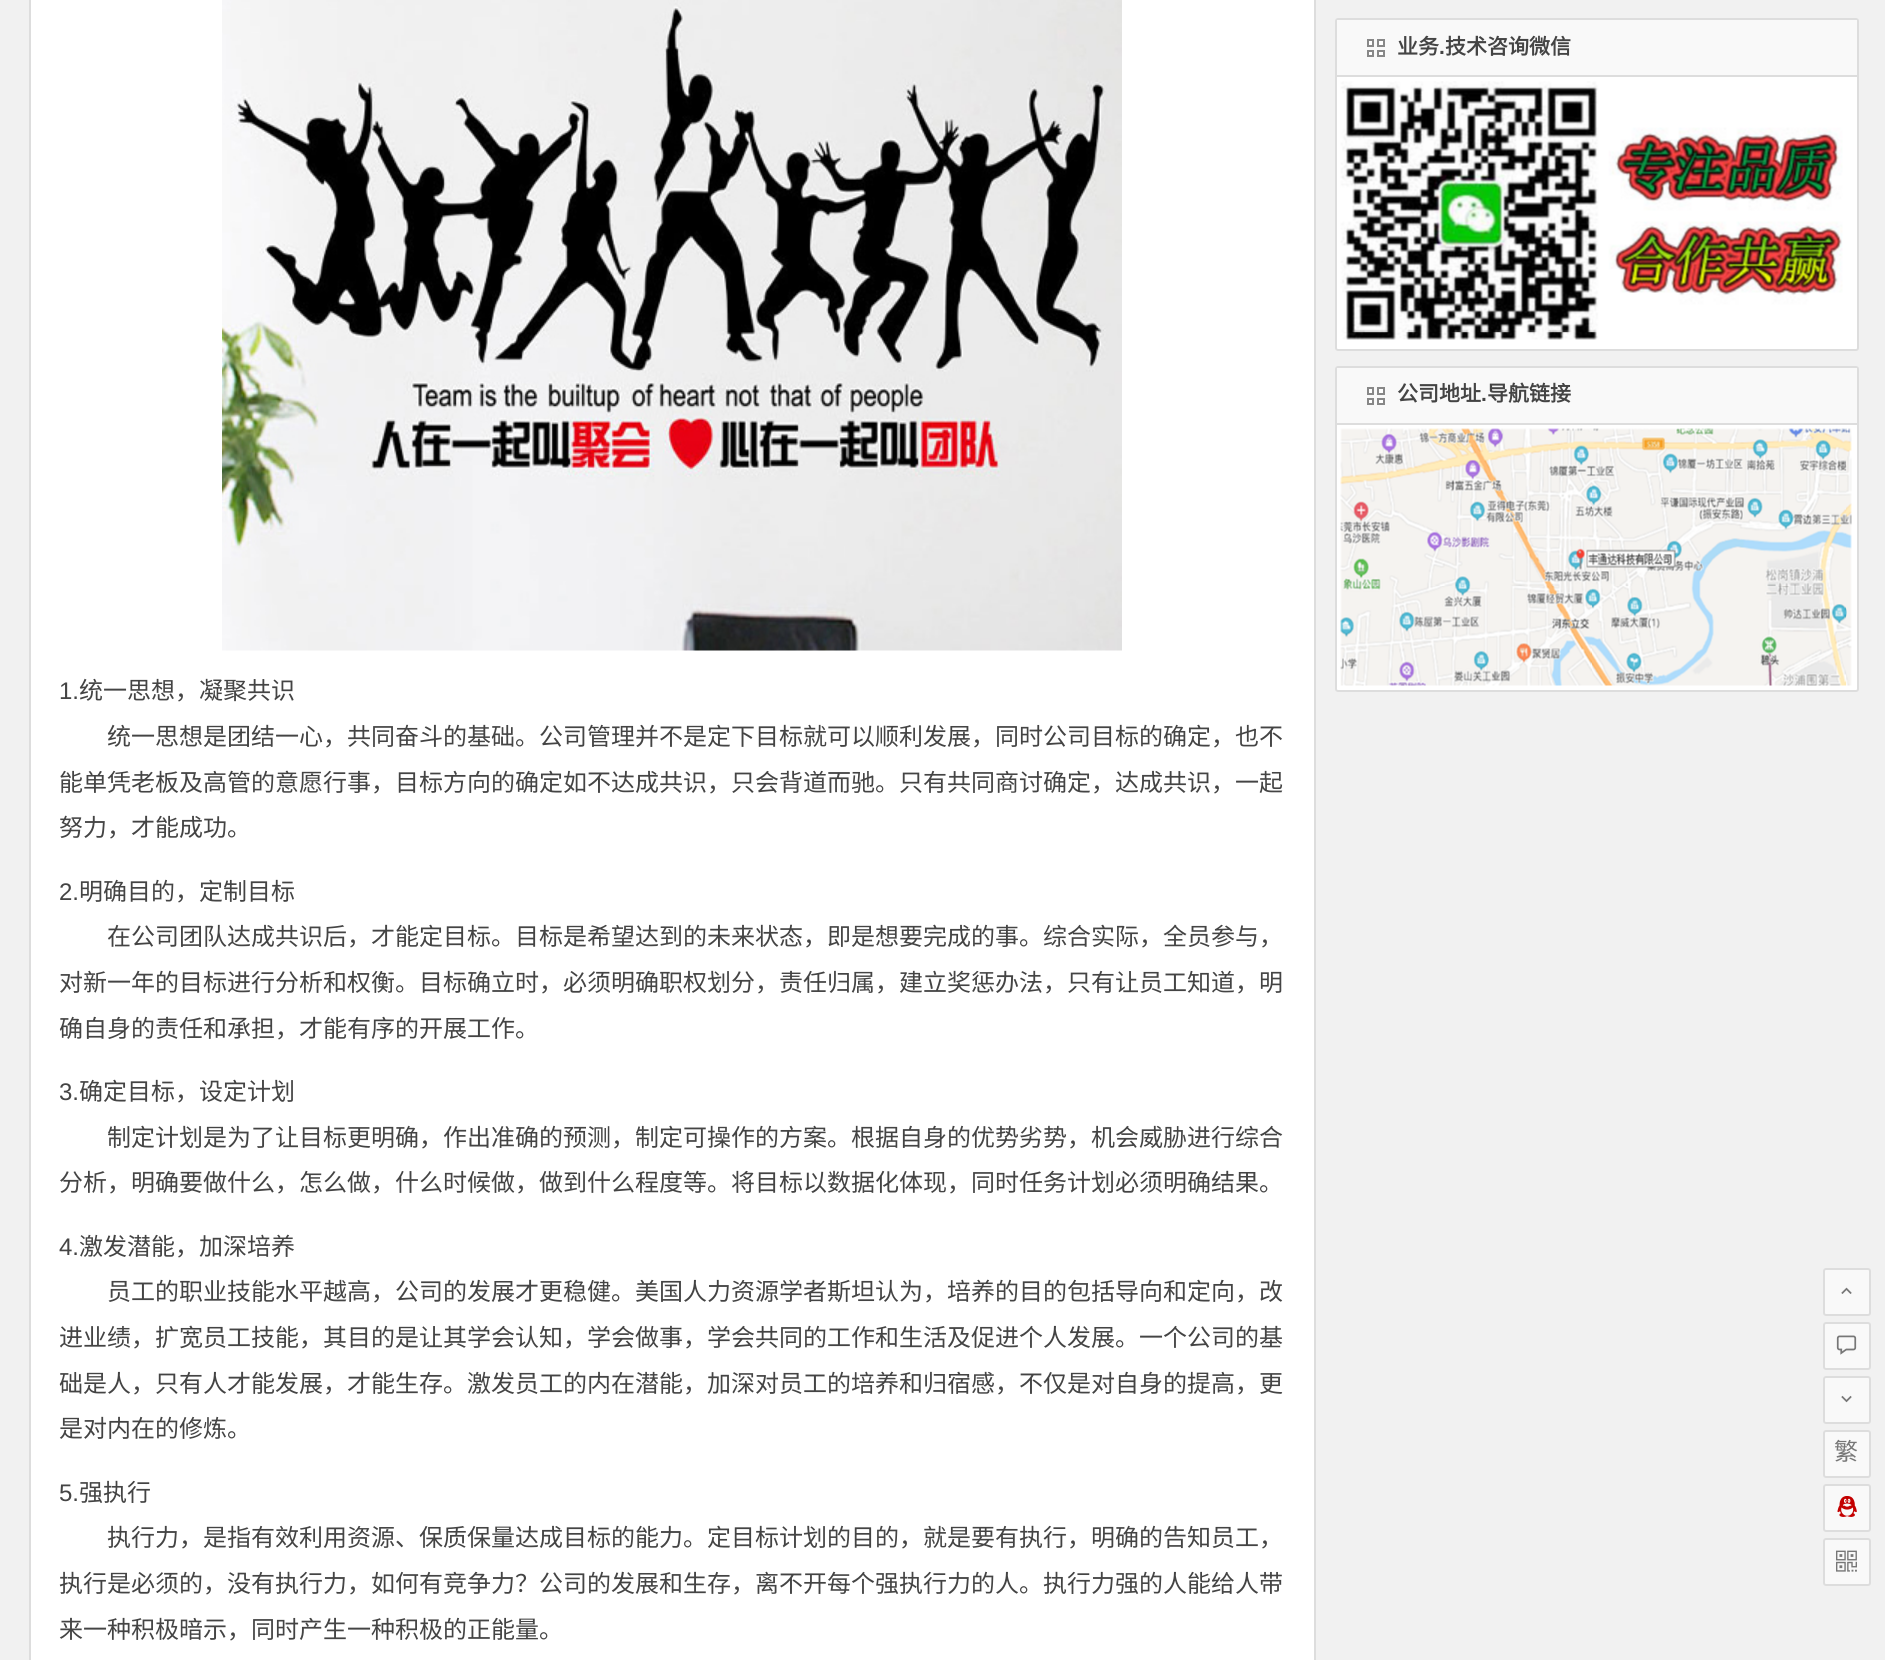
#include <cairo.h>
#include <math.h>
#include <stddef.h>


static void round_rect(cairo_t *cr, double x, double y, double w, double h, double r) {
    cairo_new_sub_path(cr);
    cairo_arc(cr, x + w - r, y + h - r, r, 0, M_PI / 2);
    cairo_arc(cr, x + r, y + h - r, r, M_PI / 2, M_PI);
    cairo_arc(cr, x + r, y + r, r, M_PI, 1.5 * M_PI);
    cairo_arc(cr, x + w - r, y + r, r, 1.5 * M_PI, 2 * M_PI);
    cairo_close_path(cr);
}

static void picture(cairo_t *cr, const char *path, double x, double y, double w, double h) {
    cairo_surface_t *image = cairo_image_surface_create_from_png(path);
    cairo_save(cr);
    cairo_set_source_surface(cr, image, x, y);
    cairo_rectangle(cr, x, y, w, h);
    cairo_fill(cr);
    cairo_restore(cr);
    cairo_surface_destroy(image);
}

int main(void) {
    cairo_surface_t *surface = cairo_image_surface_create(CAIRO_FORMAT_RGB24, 1885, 1660);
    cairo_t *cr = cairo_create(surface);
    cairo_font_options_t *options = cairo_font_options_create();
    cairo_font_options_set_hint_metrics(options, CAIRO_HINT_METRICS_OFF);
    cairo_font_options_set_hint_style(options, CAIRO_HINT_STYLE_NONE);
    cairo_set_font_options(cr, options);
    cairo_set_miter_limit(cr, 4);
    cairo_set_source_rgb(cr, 0.945, 0.945, 0.945);
    cairo_paint(cr);
    cairo_set_source_rgb(cr, 1, 1, 1);
    round_rect(cr, 1336, 19, 522, 331, 2);
    cairo_fill_preserve(cr);
    cairo_set_source_rgb(cr, 0.867, 0.867, 0.867);
    cairo_stroke(cr);
    cairo_set_source_rgb(cr, 0.973, 0.973, 0.973);
    cairo_rectangle(cr, 1337, 20, 520, 55);
    cairo_fill(cr);
    cairo_set_source_rgb(cr, 0.867, 0.867, 0.867);
    cairo_rectangle(cr, 1337, 75, 520, 2);
    cairo_fill(cr);
    cairo_set_source_rgb(cr, 1, 1, 1);
    cairo_rectangle(cr, 1368, 40, 5, 6);
    cairo_fill_preserve(cr);
    cairo_set_source_rgb(cr, 0.533, 0.533, 0.533);
    cairo_stroke(cr);
    cairo_set_source_rgb(cr, 1, 1, 1);
    cairo_rectangle(cr, 1378, 40, 6, 6);
    cairo_fill_preserve(cr);
    cairo_set_source_rgb(cr, 0.533, 0.533, 0.533);
    cairo_stroke(cr);
    cairo_set_source_rgb(cr, 1, 1, 1);
    cairo_rectangle(cr, 1368, 51, 5, 5);
    cairo_fill_preserve(cr);
    cairo_set_source_rgb(cr, 0.533, 0.533, 0.533);
    cairo_stroke(cr);
    cairo_set_source_rgb(cr, 1, 1, 1);
    cairo_rectangle(cr, 1378, 51, 6, 5);
    cairo_fill_preserve(cr);
    cairo_set_source_rgb(cr, 0.533, 0.533, 0.533);
    cairo_stroke(cr);
    cairo_select_font_face(cr, "Noto Sans CJK SC", CAIRO_FONT_SLANT_NORMAL, CAIRO_FONT_WEIGHT_BOLD);
    cairo_set_font_size(cr, 21);
    cairo_set_source_rgb(cr, 0.267, 0.267, 0.267);
    cairo_move_to(cr, 1397, 54);
    cairo_show_text(cr, "业务");
    cairo_select_font_face(cr, "Liberation Sans", CAIRO_FONT_SLANT_NORMAL, CAIRO_FONT_WEIGHT_BOLD);
    cairo_move_to(cr, 1439, 54);
    cairo_show_text(cr, ".");
    cairo_select_font_face(cr, "Noto Sans CJK SC", CAIRO_FONT_SLANT_NORMAL, CAIRO_FONT_WEIGHT_BOLD);
    cairo_move_to(cr, 1445, 54);
    cairo_show_text(cr, "技术咨询微信");
    picture(cr, "img1.png", 1340, 81, 503, 259);
    cairo_set_source_rgb(cr, 1, 1, 1);
    round_rect(cr, 1336, 367, 522, 324, 2);
    cairo_fill_preserve(cr);
    cairo_set_source_rgb(cr, 0.867, 0.867, 0.867);
    cairo_stroke(cr);
    cairo_set_source_rgb(cr, 0.973, 0.973, 0.973);
    cairo_rectangle(cr, 1337, 368, 520, 55);
    cairo_fill(cr);
    cairo_set_source_rgb(cr, 0.867, 0.867, 0.867);
    cairo_rectangle(cr, 1337, 423, 520, 2);
    cairo_fill(cr);
    cairo_set_source_rgb(cr, 1, 1, 1);
    cairo_rectangle(cr, 1368, 388, 5, 6);
    cairo_fill_preserve(cr);
    cairo_set_source_rgb(cr, 0.533, 0.533, 0.533);
    cairo_stroke(cr);
    cairo_set_source_rgb(cr, 1, 1, 1);
    cairo_rectangle(cr, 1378, 388, 6, 6);
    cairo_fill_preserve(cr);
    cairo_set_source_rgb(cr, 0.533, 0.533, 0.533);
    cairo_stroke(cr);
    cairo_set_source_rgb(cr, 1, 1, 1);
    cairo_rectangle(cr, 1368, 399, 5, 5);
    cairo_fill_preserve(cr);
    cairo_set_source_rgb(cr, 0.533, 0.533, 0.533);
    cairo_stroke(cr);
    cairo_set_source_rgb(cr, 1, 1, 1);
    cairo_rectangle(cr, 1378, 399, 6, 5);
    cairo_fill_preserve(cr);
    cairo_set_source_rgb(cr, 0.533, 0.533, 0.533);
    cairo_stroke(cr);
    cairo_set_source_rgb(cr, 0.267, 0.267, 0.267);
    cairo_move_to(cr, 1397, 401);
    cairo_show_text(cr, "公司地址");
    cairo_select_font_face(cr, "Liberation Sans", CAIRO_FONT_SLANT_NORMAL, CAIRO_FONT_WEIGHT_BOLD);
    cairo_move_to(cr, 1481, 401);
    cairo_show_text(cr, ".");
    cairo_select_font_face(cr, "Noto Sans CJK SC", CAIRO_FONT_SLANT_NORMAL, CAIRO_FONT_WEIGHT_BOLD);
    cairo_move_to(cr, 1487, 401);
    cairo_show_text(cr, "导航链接");
    picture(cr, "img2.png", 1340, 428, 512, 258);
    cairo_set_source_rgb(cr, 1, 1, 1);
    cairo_rectangle(cr, 30, -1, 1285, 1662);
    cairo_fill_preserve(cr);
    cairo_set_source_rgb(cr, 0.867, 0.867, 0.867);
    cairo_stroke(cr);
    picture(cr, "img3.png", 222, 0, 900, 651);
    cairo_select_font_face(cr, "Liberation Sans", CAIRO_FONT_SLANT_NORMAL, CAIRO_FONT_WEIGHT_NORMAL);
    cairo_set_font_size(cr, 24);
    cairo_set_source_rgb(cr, 0.267, 0.267, 0.267);
    cairo_move_to(cr, 59, 699);
    cairo_show_text(cr, "1.");
    cairo_select_font_face(cr, "Noto Sans CJK SC", CAIRO_FONT_SLANT_NORMAL, CAIRO_FONT_WEIGHT_NORMAL);
    cairo_move_to(cr, 79, 699);
    cairo_show_text(cr, "统一思想，凝聚共识");
    cairo_move_to(cr, 107, 745);
    cairo_show_text(cr, "统一思想是团结一心，共同奋斗的基础。公司管理并不是定下目标就可以顺利发展，同时公司目标的确定，也不");
    cairo_move_to(cr, 59, 791);
    cairo_show_text(cr, "能单凭老板及高管的意愿行事，目标方向的确定如不达成共识，只会背道而驰。只有共同商讨确定，达成共识，一起");
    cairo_move_to(cr, 59, 836);
    cairo_show_text(cr, "努力，才能成功。");
    cairo_select_font_face(cr, "Liberation Sans", CAIRO_FONT_SLANT_NORMAL, CAIRO_FONT_WEIGHT_NORMAL);
    cairo_move_to(cr, 59, 900);
    cairo_show_text(cr, "2.");
    cairo_select_font_face(cr, "Noto Sans CJK SC", CAIRO_FONT_SLANT_NORMAL, CAIRO_FONT_WEIGHT_NORMAL);
    cairo_move_to(cr, 79, 900);
    cairo_show_text(cr, "明确目的，定制目标");
    cairo_move_to(cr, 107, 945);
    cairo_show_text(cr, "在公司团队达成共识后，才能定目标。目标是希望达到的未来状态，即是想要完成的事。综合实际，全员参与，");
    cairo_move_to(cr, 59, 991);
    cairo_show_text(cr, "对新一年的目标进行分析和权衡。目标确立时，必须明确职权划分，责任归属，建立奖惩办法，只有让员工知道，明");
    cairo_move_to(cr, 59, 1037);
    cairo_show_text(cr, "确自身的责任和承担，才能有序的开展工作。");
    cairo_select_font_face(cr, "Liberation Sans", CAIRO_FONT_SLANT_NORMAL, CAIRO_FONT_WEIGHT_NORMAL);
    cairo_move_to(cr, 59, 1100);
    cairo_show_text(cr, "3.");
    cairo_select_font_face(cr, "Noto Sans CJK SC", CAIRO_FONT_SLANT_NORMAL, CAIRO_FONT_WEIGHT_NORMAL);
    cairo_move_to(cr, 79, 1100);
    cairo_show_text(cr, "确定目标，设定计划");
    cairo_move_to(cr, 107, 1146);
    cairo_show_text(cr, "制定计划是为了让目标更明确，作出准确的预测，制定可操作的方案。根据自身的优势劣势，机会威胁进行综合");
    cairo_move_to(cr, 59, 1191);
    cairo_show_text(cr, "分析，明确要做什么，怎么做，什么时候做，做到什么程度等。将目标以数据化体现，同时任务计划必须明确结果。");
    cairo_select_font_face(cr, "Liberation Sans", CAIRO_FONT_SLANT_NORMAL, CAIRO_FONT_WEIGHT_NORMAL);
    cairo_move_to(cr, 59, 1255);
    cairo_show_text(cr, "4.");
    cairo_select_font_face(cr, "Noto Sans CJK SC", CAIRO_FONT_SLANT_NORMAL, CAIRO_FONT_WEIGHT_NORMAL);
    cairo_move_to(cr, 79, 1255);
    cairo_show_text(cr, "激发潜能，加深培养");
    cairo_move_to(cr, 107, 1300);
    cairo_show_text(cr, "员工的职业技能水平越高，公司的发展才更稳健。美国人力资源学者斯坦认为，培养的目的包括导向和定向，改");
    cairo_move_to(cr, 59, 1346);
    cairo_show_text(cr, "进业绩，扩宽员工技能，其目的是让其学会认知，学会做事，学会共同的工作和生活及促进个人发展。一个公司的基");
    cairo_move_to(cr, 59, 1392);
    cairo_show_text(cr, "础是人，只有人才能发展，才能生存。激发员工的内在潜能，加深对员工的培养和归宿感，不仅是对自身的提高，更");
    cairo_move_to(cr, 59, 1437);
    cairo_show_text(cr, "是对内在的修炼。");
    cairo_select_font_face(cr, "Liberation Sans", CAIRO_FONT_SLANT_NORMAL, CAIRO_FONT_WEIGHT_NORMAL);
    cairo_move_to(cr, 59, 1501);
    cairo_show_text(cr, "5.");
    cairo_select_font_face(cr, "Noto Sans CJK SC", CAIRO_FONT_SLANT_NORMAL, CAIRO_FONT_WEIGHT_NORMAL);
    cairo_move_to(cr, 79, 1501);
    cairo_show_text(cr, "强执行");
    cairo_move_to(cr, 107, 1546);
    cairo_show_text(cr, "执行力，是指有效利用资源、保质保量达成目标的能力。定目标计划的目的，就是要有执行，明确的告知员工，");
    cairo_move_to(cr, 59, 1592);
    cairo_show_text(cr, "执行是必须的，没有执行力，如何有竞争力？公司的发展和生存，离不开每个强执行力的人。执行力强的人能给人带");
    cairo_move_to(cr, 59, 1638);
    cairo_show_text(cr, "来一种积极暗示，同时产生一种积极的正能量。");
    cairo_set_source_rgba(cr, 1, 1, 1, 0.6);
    round_rect(cr, 1824, 1269, 46, 46, 2);
    cairo_fill_preserve(cr);
    cairo_set_source_rgb(cr, 0.867, 0.867, 0.867);
    cairo_stroke(cr);
    picture(cr, "img4.png", 1841, 1287, 11, 7);
    cairo_set_source_rgba(cr, 1, 1, 1, 0.6);
    round_rect(cr, 1824, 1323, 46, 46, 2);
    cairo_fill_preserve(cr);
    cairo_set_source_rgb(cr, 0.867, 0.867, 0.867);
    cairo_stroke(cr);
    picture(cr, "img5.png", 1836, 1335, 21, 20);
    cairo_set_source_rgba(cr, 1, 1, 1, 0.6);
    round_rect(cr, 1824, 1377, 46, 46, 2);
    cairo_fill_preserve(cr);
    cairo_set_source_rgb(cr, 0.867, 0.867, 0.867);
    cairo_stroke(cr);
    picture(cr, "img6.png", 1841, 1395, 11, 8);
    cairo_set_source_rgba(cr, 1, 1, 1, 0.6);
    round_rect(cr, 1824, 1431, 46, 46, 2);
    cairo_fill_preserve(cr);
    cairo_set_source_rgb(cr, 0.867, 0.867, 0.867);
    cairo_stroke(cr);
    cairo_set_source_rgb(cr, 0.467, 0.467, 0.467);
    cairo_move_to(cr, 1834, 1460);
    cairo_show_text(cr, "繁");
    cairo_set_source_rgba(cr, 1, 1, 1, 0.6);
    round_rect(cr, 1824, 1485, 46, 46, 2);
    cairo_fill_preserve(cr);
    cairo_set_source_rgb(cr, 0.867, 0.867, 0.867);
    cairo_stroke(cr);
    picture(cr, "img7.png", 1837, 1496, 20, 21);
    cairo_set_source_rgba(cr, 1, 1, 1, 0.6);
    round_rect(cr, 1824, 1539, 46, 46, 2);
    cairo_fill_preserve(cr);
    cairo_set_source_rgb(cr, 0.867, 0.867, 0.867);
    cairo_stroke(cr);
    picture(cr, "img8.png", 1836, 1550, 21, 22);
    cairo_surface_write_to_png(surface, "page.png");
    cairo_font_options_destroy(options);
    cairo_destroy(cr);
    cairo_surface_destroy(surface);
    return 0;
}
